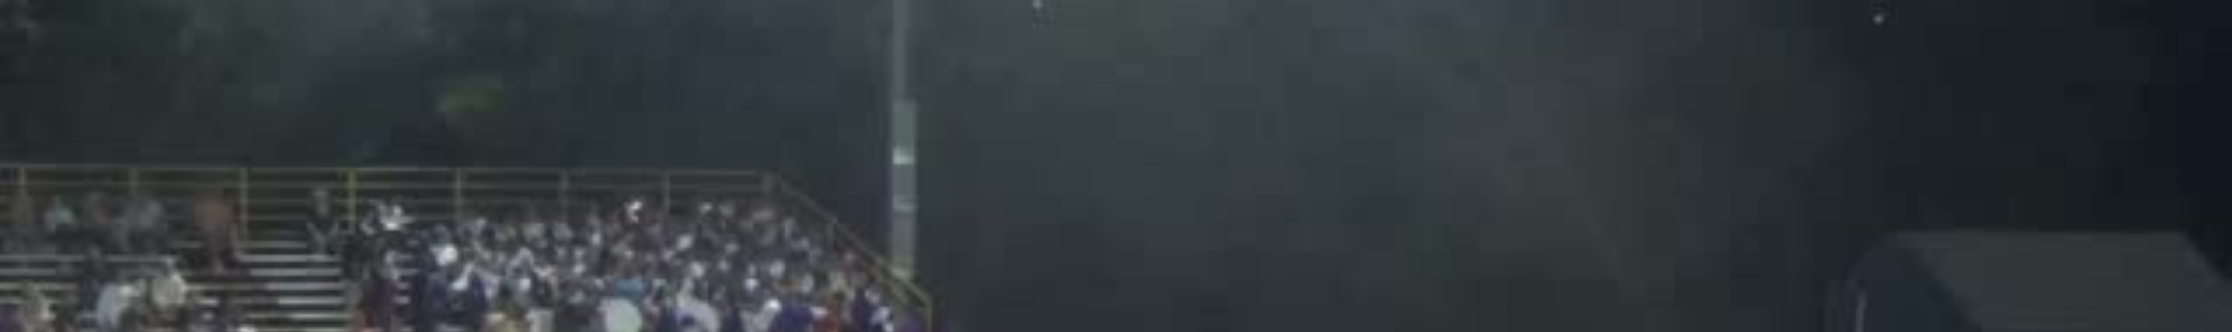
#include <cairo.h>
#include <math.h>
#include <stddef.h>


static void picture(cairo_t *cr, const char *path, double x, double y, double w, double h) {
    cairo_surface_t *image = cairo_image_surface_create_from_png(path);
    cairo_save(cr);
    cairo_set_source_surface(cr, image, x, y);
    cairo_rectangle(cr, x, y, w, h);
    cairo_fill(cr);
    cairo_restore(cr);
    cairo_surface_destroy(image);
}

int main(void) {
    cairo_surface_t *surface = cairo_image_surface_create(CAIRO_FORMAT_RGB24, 2232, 332);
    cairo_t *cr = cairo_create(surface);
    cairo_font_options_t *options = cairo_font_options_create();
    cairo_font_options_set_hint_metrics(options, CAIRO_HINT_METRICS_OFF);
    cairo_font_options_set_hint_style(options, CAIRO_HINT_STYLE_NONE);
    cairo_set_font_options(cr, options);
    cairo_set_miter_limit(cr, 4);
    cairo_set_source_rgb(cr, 1, 1, 1);
    cairo_paint(cr);
    picture(cr, "img1.png", 0, 0, 2232, 332);
    cairo_surface_write_to_png(surface, "page.png");
    cairo_font_options_destroy(options);
    cairo_destroy(cr);
    cairo_surface_destroy(surface);
    return 0;
}
